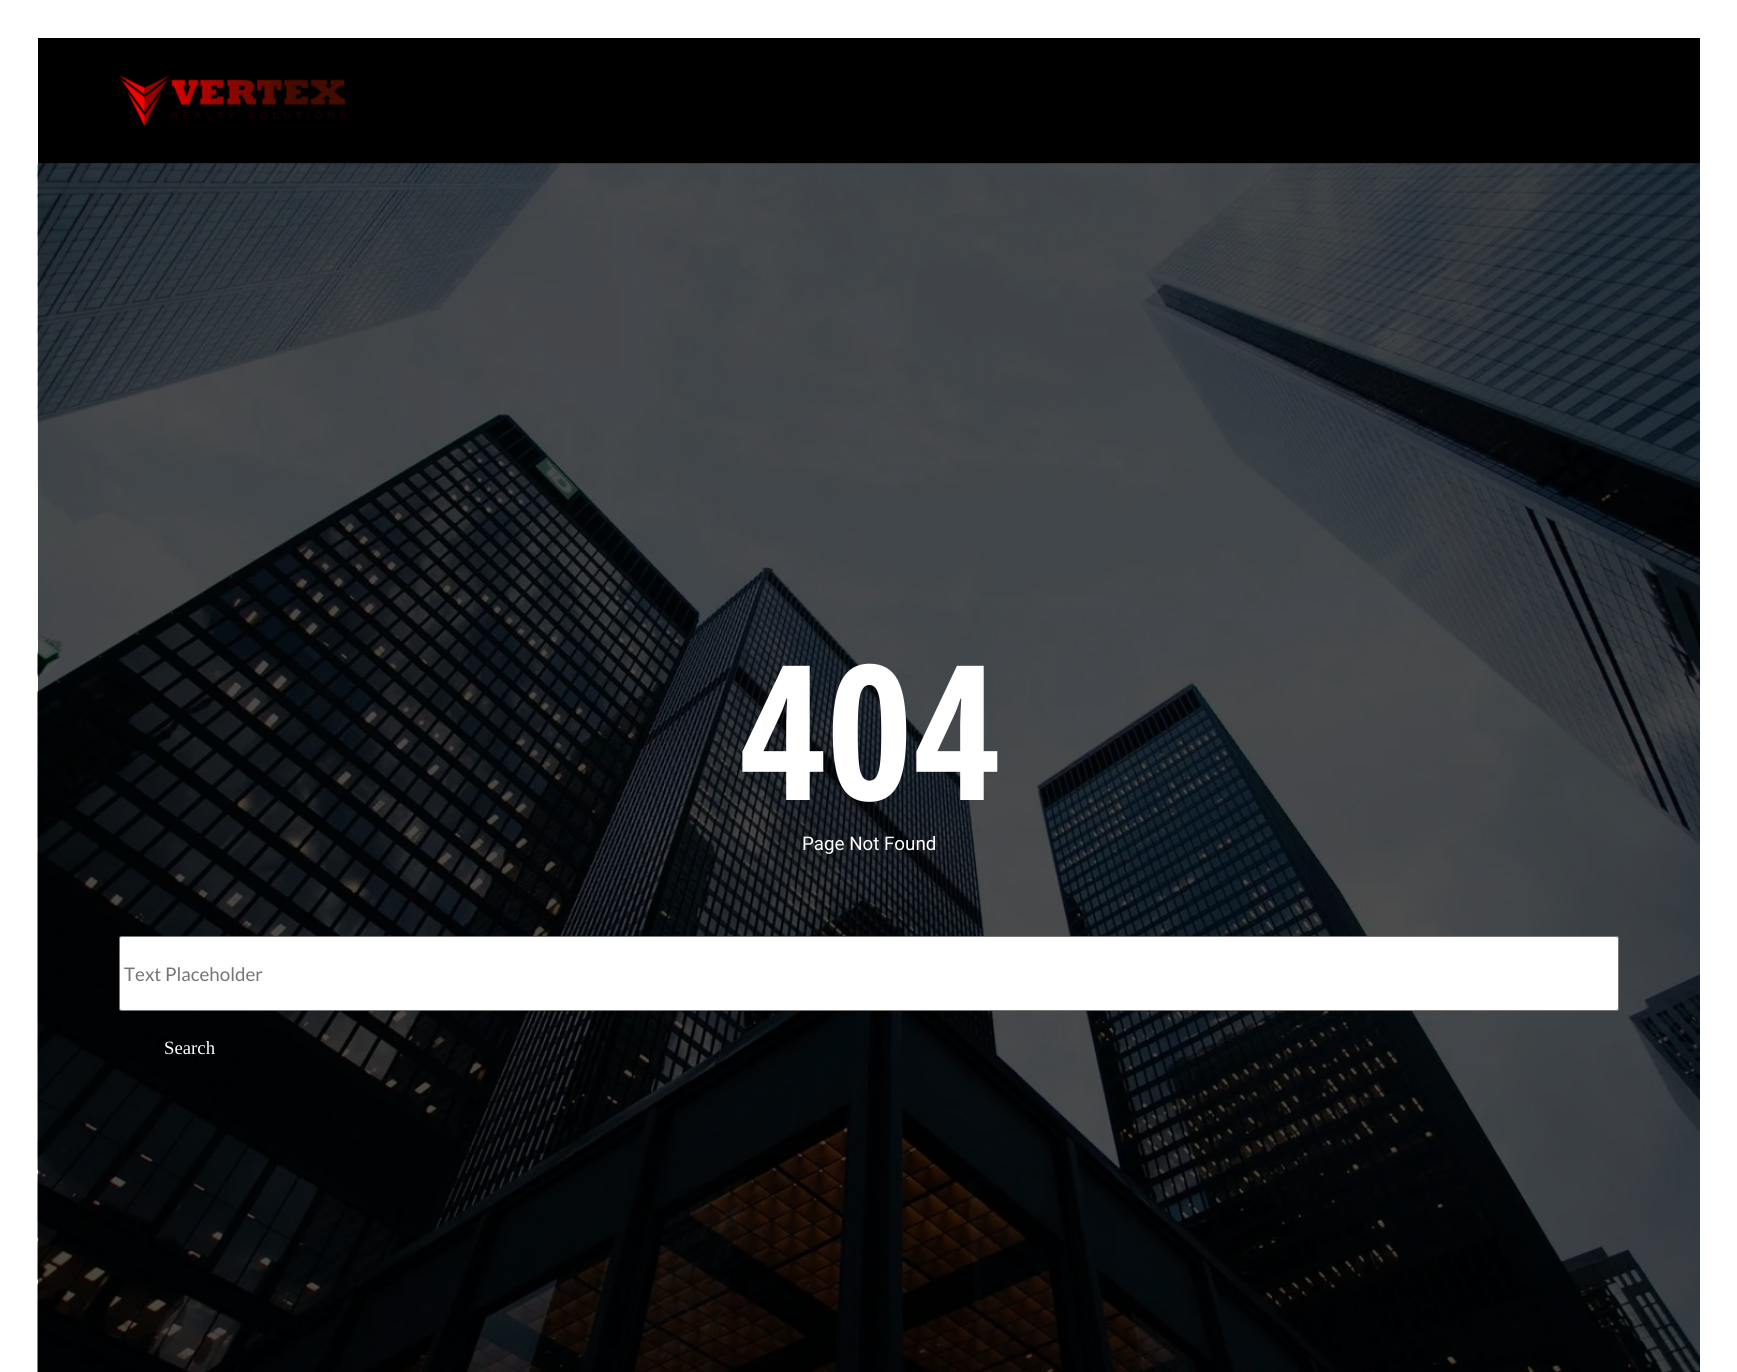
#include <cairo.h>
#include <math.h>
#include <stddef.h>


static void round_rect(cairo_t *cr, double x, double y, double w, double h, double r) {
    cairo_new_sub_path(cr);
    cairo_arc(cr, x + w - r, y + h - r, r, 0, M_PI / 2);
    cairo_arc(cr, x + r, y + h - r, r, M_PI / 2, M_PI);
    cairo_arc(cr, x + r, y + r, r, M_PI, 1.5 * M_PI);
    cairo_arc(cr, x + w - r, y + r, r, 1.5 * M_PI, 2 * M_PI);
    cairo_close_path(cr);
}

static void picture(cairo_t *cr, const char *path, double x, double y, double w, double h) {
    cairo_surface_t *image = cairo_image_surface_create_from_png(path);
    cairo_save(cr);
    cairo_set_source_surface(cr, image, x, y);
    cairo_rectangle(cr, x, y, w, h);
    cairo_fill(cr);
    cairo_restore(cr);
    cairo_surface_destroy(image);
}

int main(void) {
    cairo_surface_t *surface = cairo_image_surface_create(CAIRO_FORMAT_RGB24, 1737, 1372);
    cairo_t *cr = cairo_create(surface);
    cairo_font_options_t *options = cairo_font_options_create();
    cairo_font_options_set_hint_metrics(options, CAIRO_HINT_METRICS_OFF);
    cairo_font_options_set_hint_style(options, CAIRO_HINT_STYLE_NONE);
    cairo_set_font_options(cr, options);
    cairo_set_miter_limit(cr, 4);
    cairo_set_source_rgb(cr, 1, 1, 1);
    cairo_paint(cr);
    cairo_set_source_rgb(cr, 0, 0, 0);
    cairo_rectangle(cr, 38, 38, 1662, 126);
    cairo_fill(cr);
    picture(cr, "img1.png", 119, 75, 228, 51);
    picture(cr, "img2.png", 37, 163, 1663, 1209);
    cairo_select_font_face(cr, "Open Sans Condensed", CAIRO_FONT_SLANT_NORMAL, CAIRO_FONT_WEIGHT_BOLD);
    cairo_set_font_size(cr, 188);
    cairo_set_source_rgb(cr, 1, 1, 1);
    cairo_move_to(cr, 739, 800);
    cairo_show_text(cr, "404");
    cairo_select_font_face(cr, "Roboto", CAIRO_FONT_SLANT_NORMAL, CAIRO_FONT_WEIGHT_NORMAL);
    cairo_set_font_size(cr, 18.75);
    cairo_move_to(cr, 802, 850);
    cairo_show_text(cr, "Page Not Found");
    round_rect(cr, 119.5, 936.5, 1499, 74, 2);
    cairo_fill_preserve(cr);
    cairo_set_source_rgb(cr, 0.463, 0.463, 0.463);
    cairo_set_line_width(cr, 1);
    cairo_stroke(cr);
    cairo_select_font_face(cr, "Lato", CAIRO_FONT_SLANT_NORMAL, CAIRO_FONT_WEIGHT_NORMAL);
    cairo_set_source_rgb(cr, 0.459, 0.459, 0.459);
    cairo_move_to(cr, 124, 981);
    cairo_show_text(cr, "Text Placeholder");
    cairo_select_font_face(cr, "Liberation Serif", CAIRO_FONT_SLANT_NORMAL, CAIRO_FONT_WEIGHT_NORMAL);
    cairo_set_source_rgb(cr, 1, 1, 1);
    cairo_move_to(cr, 164, 1054);
    cairo_show_text(cr, "Search");
    cairo_surface_write_to_png(surface, "page.png");
    cairo_font_options_destroy(options);
    cairo_destroy(cr);
    cairo_surface_destroy(surface);
    return 0;
}
